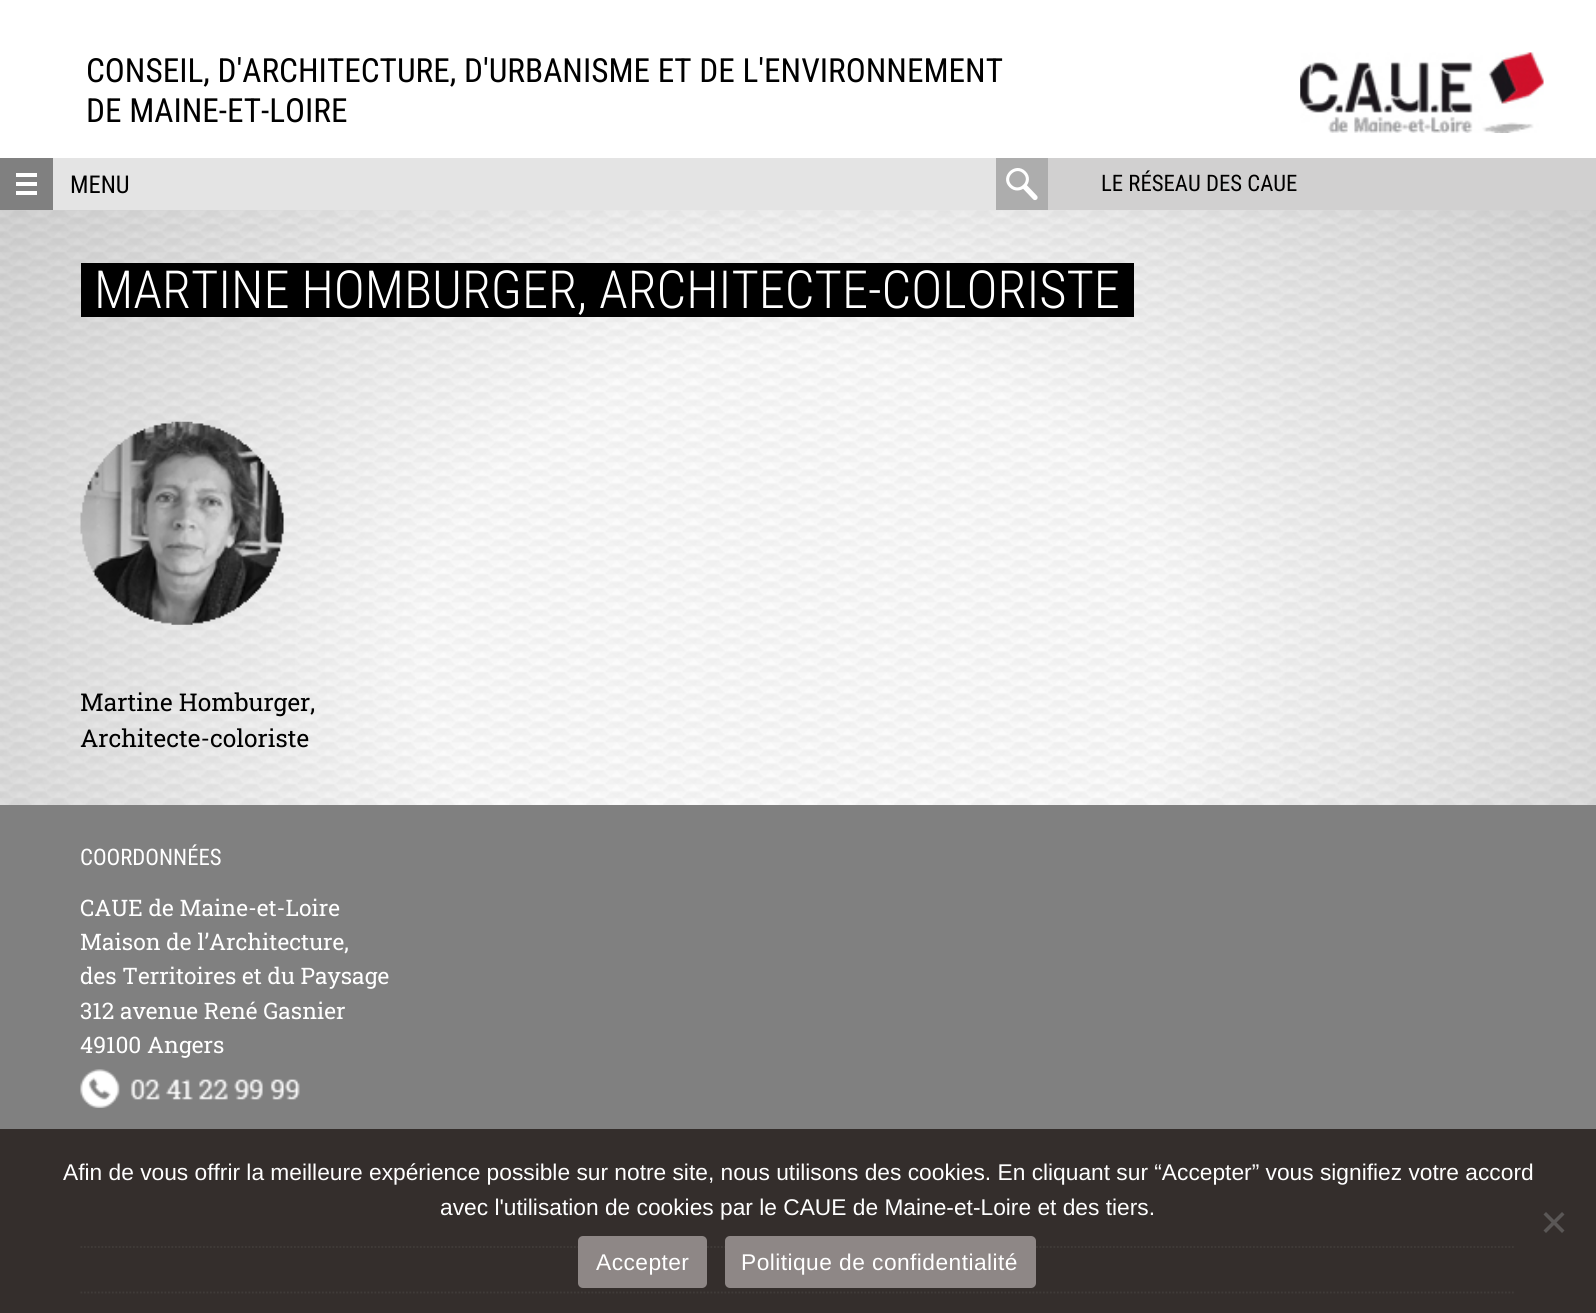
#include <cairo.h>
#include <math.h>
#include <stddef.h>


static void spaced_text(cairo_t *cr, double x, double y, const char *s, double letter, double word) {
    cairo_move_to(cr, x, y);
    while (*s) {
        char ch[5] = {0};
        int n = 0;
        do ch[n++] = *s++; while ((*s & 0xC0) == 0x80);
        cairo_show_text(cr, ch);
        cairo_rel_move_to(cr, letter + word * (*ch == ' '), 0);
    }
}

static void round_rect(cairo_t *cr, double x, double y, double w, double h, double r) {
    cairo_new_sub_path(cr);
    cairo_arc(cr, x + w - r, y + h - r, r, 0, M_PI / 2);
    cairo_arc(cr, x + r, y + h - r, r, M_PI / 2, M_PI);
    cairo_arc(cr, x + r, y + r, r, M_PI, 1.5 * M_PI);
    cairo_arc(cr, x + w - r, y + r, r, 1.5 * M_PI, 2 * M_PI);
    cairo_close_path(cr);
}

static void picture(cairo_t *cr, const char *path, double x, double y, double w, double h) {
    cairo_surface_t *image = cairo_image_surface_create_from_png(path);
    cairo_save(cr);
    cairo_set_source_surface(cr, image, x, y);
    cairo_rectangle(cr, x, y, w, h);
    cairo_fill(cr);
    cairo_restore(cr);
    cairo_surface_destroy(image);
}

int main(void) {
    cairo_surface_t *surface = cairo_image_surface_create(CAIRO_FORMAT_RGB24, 1596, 1313);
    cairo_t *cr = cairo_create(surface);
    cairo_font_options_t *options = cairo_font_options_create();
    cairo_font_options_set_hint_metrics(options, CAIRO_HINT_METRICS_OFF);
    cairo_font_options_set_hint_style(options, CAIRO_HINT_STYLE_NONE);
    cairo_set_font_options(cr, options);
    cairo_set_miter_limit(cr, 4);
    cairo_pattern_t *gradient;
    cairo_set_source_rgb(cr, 1, 1, 1);
    cairo_paint(cr);
    gradient = cairo_pattern_create_radial(0, 0, 0, 0, 0, 1);
    cairo_pattern_set_matrix(gradient, &(cairo_matrix_t){1.0 / 1129, 0, 0, 1.0 / 929, -1.0 * 798 / 1129, -1.0 * 657 / 929});
    cairo_pattern_add_color_stop_rgba(gradient, 0.33, 1, 1, 1, 1);
    cairo_pattern_add_color_stop_rgba(gradient, 1, 0.6, 0.6, 0.6, 1);
    cairo_set_source(cr, gradient);
    cairo_pattern_destroy(gradient);
    cairo_rectangle(cr, 0, 210, 1596, 595);
    cairo_fill(cr);
    picture(cr, "img1.png", 0, 210, 1596, 595);
    cairo_select_font_face(cr, "Roboto Condensed", CAIRO_FONT_SLANT_NORMAL, CAIRO_FONT_WEIGHT_NORMAL);
    cairo_set_font_size(cr, 33.25);
    cairo_set_source_rgb(cr, 0, 0, 0);
    cairo_move_to(cr, 86, 82);
    cairo_show_text(cr, "CONSEIL, D'ARCHITECTURE, D'URBANISME ET DE L'ENVIRONNEMENT");
    cairo_move_to(cr, 86, 122);
    cairo_show_text(cr, "DE MAINE-ET-LOIRE");
    picture(cr, "img2.png", 1300, 52, 244, 81);
    cairo_set_source_rgb(cr, 0.502, 0.502, 0.502);
    cairo_rectangle(cr, 0, 158, 53, 52);
    cairo_fill(cr);
    cairo_set_source_rgb(cr, 1, 1, 1);
    cairo_rectangle(cr, 16, 182, 21, 4);
    cairo_fill(cr);
    cairo_rectangle(cr, 16, 173, 21, 4);
    cairo_fill(cr);
    cairo_rectangle(cr, 16, 191, 21, 4);
    cairo_fill(cr);
    cairo_set_source_rgb(cr, 0.894, 0.894, 0.894);
    cairo_rectangle(cr, 53, 158, 943, 52);
    cairo_fill(cr);
    cairo_set_font_size(cr, 24.5);
    cairo_set_source_rgb(cr, 0, 0, 0);
    cairo_move_to(cr, 70, 193);
    cairo_show_text(cr, "MENU");
    cairo_set_source_rgb(cr, 0.678, 0.678, 0.678);
    cairo_rectangle(cr, 996, 158, 52, 52);
    cairo_fill(cr);
    cairo_new_path(cr);
    cairo_move_to(cr, 1024.5, 172.5);
    cairo_curve_to(cr, 1033.5, 181.5, 1019.5, 195, 1010.5, 186);
    cairo_curve_to(cr, 1001.5, 177, 1015.5, 163.5, 1024.5, 172.5);
    cairo_close_path(cr);
    cairo_set_source_rgb(cr, 1, 1, 1);
    cairo_set_line_width(cr, 3.1);
    cairo_stroke(cr);
    cairo_new_path(cr);
    cairo_move_to(cr, 1035, 197.5);
    cairo_line_to(cr, 1025, 187);
    cairo_set_line_width(cr, 5.2);
    cairo_set_line_cap(cr, CAIRO_LINE_CAP_ROUND);
    cairo_stroke(cr);
    cairo_set_source_rgb(cr, 0.82, 0.816, 0.816);
    cairo_rectangle(cr, 1048, 158, 548, 52);
    cairo_fill(cr);
    cairo_set_font_size(cr, 22.75);
    cairo_set_source_rgb(cr, 0, 0, 0);
    cairo_move_to(cr, 1101, 191);
    cairo_show_text(cr, "LE RÉSEAU DES CAUE");
    cairo_rectangle(cr, 81, 263, 1053, 54);
    cairo_fill(cr);
    cairo_select_font_face(cr, "Roboto Condensed Light", CAIRO_FONT_SLANT_NORMAL, CAIRO_FONT_WEIGHT_NORMAL);
    cairo_set_font_size(cr, 52.5);
    cairo_set_source_rgb(cr, 1, 1, 1);
    cairo_move_to(cr, 94, 308);
    cairo_show_text(cr, "MARTINE HOMBURGER, ARCHITECTE-COLORISTE");
    picture(cr, "img3.png", 80, 421, 204, 204);
    cairo_select_font_face(cr, "Roboto Slab", CAIRO_FONT_SLANT_NORMAL, CAIRO_FONT_WEIGHT_NORMAL);
    cairo_set_font_size(cr, 24.5);
    cairo_set_source_rgb(cr, 0, 0, 0);
    cairo_move_to(cr, 80, 711);
    cairo_show_text(cr, "Martine Homburger,");
    cairo_move_to(cr, 80, 747);
    cairo_show_text(cr, "Architecte-coloriste");
    cairo_set_source_rgb(cr, 0.502, 0.502, 0.502);
    cairo_rectangle(cr, 0, 805, 1596, 324);
    cairo_fill(cr);
    cairo_set_source_rgb(cr, 0.204, 0.18, 0.173);
    cairo_rectangle(cr, 0, 1129, 1596, 184);
    cairo_fill(cr);
    cairo_select_font_face(cr, "Roboto Condensed", CAIRO_FONT_SLANT_NORMAL, CAIRO_FONT_WEIGHT_NORMAL);
    cairo_set_font_size(cr, 22.75);
    cairo_set_source_rgb(cr, 1, 1, 1);
    cairo_move_to(cr, 80, 865);
    cairo_show_text(cr, "COORDONNÉES");
    cairo_select_font_face(cr, "Roboto Slab", CAIRO_FONT_SLANT_NORMAL, CAIRO_FONT_WEIGHT_NORMAL);
    cairo_move_to(cr, 80, 916);
    cairo_show_text(cr, "CAUE de Maine-et-Loire");
    cairo_move_to(cr, 80, 950);
    cairo_show_text(cr, "Maison de l’Architecture,");
    cairo_move_to(cr, 80, 984);
    cairo_show_text(cr, "des Territoires et du Paysage");
    cairo_move_to(cr, 80, 1019);
    cairo_show_text(cr, "312 avenue René Gasnier");
    cairo_move_to(cr, 80, 1053);
    cairo_show_text(cr, "49100 Angers");
    picture(cr, "img4.png", 80, 1069, 220, 39);
    cairo_new_path(cr);
    cairo_move_to(cr, 80.5, 1247);
    cairo_line_to(cr, 1515.5, 1247);
    cairo_set_source_rgb(cr, 0.251, 0.231, 0.224);
    cairo_set_line_width(cr, 1.8);
    cairo_set_line_cap(cr, CAIRO_LINE_CAP_BUTT);
    cairo_set_dash(cr, (double[]){1.75, 1.75}, 2, 0);
    cairo_stroke(cr);
    cairo_new_path(cr);
    cairo_move_to(cr, 80.5, 1292.5);
    cairo_line_to(cr, 1515.5, 1292.5);
    cairo_stroke(cr);
    cairo_select_font_face(cr, "Liberation Sans", CAIRO_FONT_SLANT_NORMAL, CAIRO_FONT_WEIGHT_NORMAL);
    cairo_set_source_rgb(cr, 1, 1, 1);
    cairo_move_to(cr, 63, 1180);
    cairo_show_text(cr, "Afin de vous offrir la meilleure expérience possible sur notre site, nous utilisons des cookies. En cliquant sur “Accepter” vous signifiez votre accord");
    cairo_move_to(cr, 440, 1215);
    cairo_show_text(cr, "avec l'utilisation de cookies par le CAUE de Maine-et-Loire et des tiers.");
    cairo_set_source_rgb(cr, 0.353, 0.341, 0.337);
    cairo_new_path(cr);
    cairo_move_to(cr, 1562, 1212);
    cairo_line_to(cr, 1564.5, 1214.5);
    cairo_line_to(cr, 1546, 1233);
    cairo_line_to(cr, 1543.5, 1230.5);
    cairo_close_path(cr);
    cairo_fill(cr);
    cairo_new_path(cr);
    cairo_move_to(cr, 1543.5, 1214.5);
    cairo_line_to(cr, 1546, 1212);
    cairo_line_to(cr, 1564.5, 1230.5);
    cairo_line_to(cr, 1562, 1233);
    cairo_close_path(cr);
    cairo_fill(cr);
    cairo_set_source_rgb(cr, 0.557, 0.529, 0.525);
    round_rect(cr, 578, 1236, 129, 52, 5);
    cairo_fill(cr);
    cairo_set_source_rgb(cr, 1, 1, 1);
    spaced_text(cr, 596, 1270, "Accepter", 0.45, 0);
    cairo_set_source_rgb(cr, 0.557, 0.529, 0.525);
    round_rect(cr, 725, 1236, 311, 52, 5);
    cairo_fill(cr);
    cairo_set_source_rgb(cr, 1, 1, 1);
    spaced_text(cr, 741, 1270, "Politique de confidentialité", 0.45, 0);
    cairo_surface_write_to_png(surface, "page.png");
    cairo_font_options_destroy(options);
    cairo_destroy(cr);
    cairo_surface_destroy(surface);
    return 0;
}
